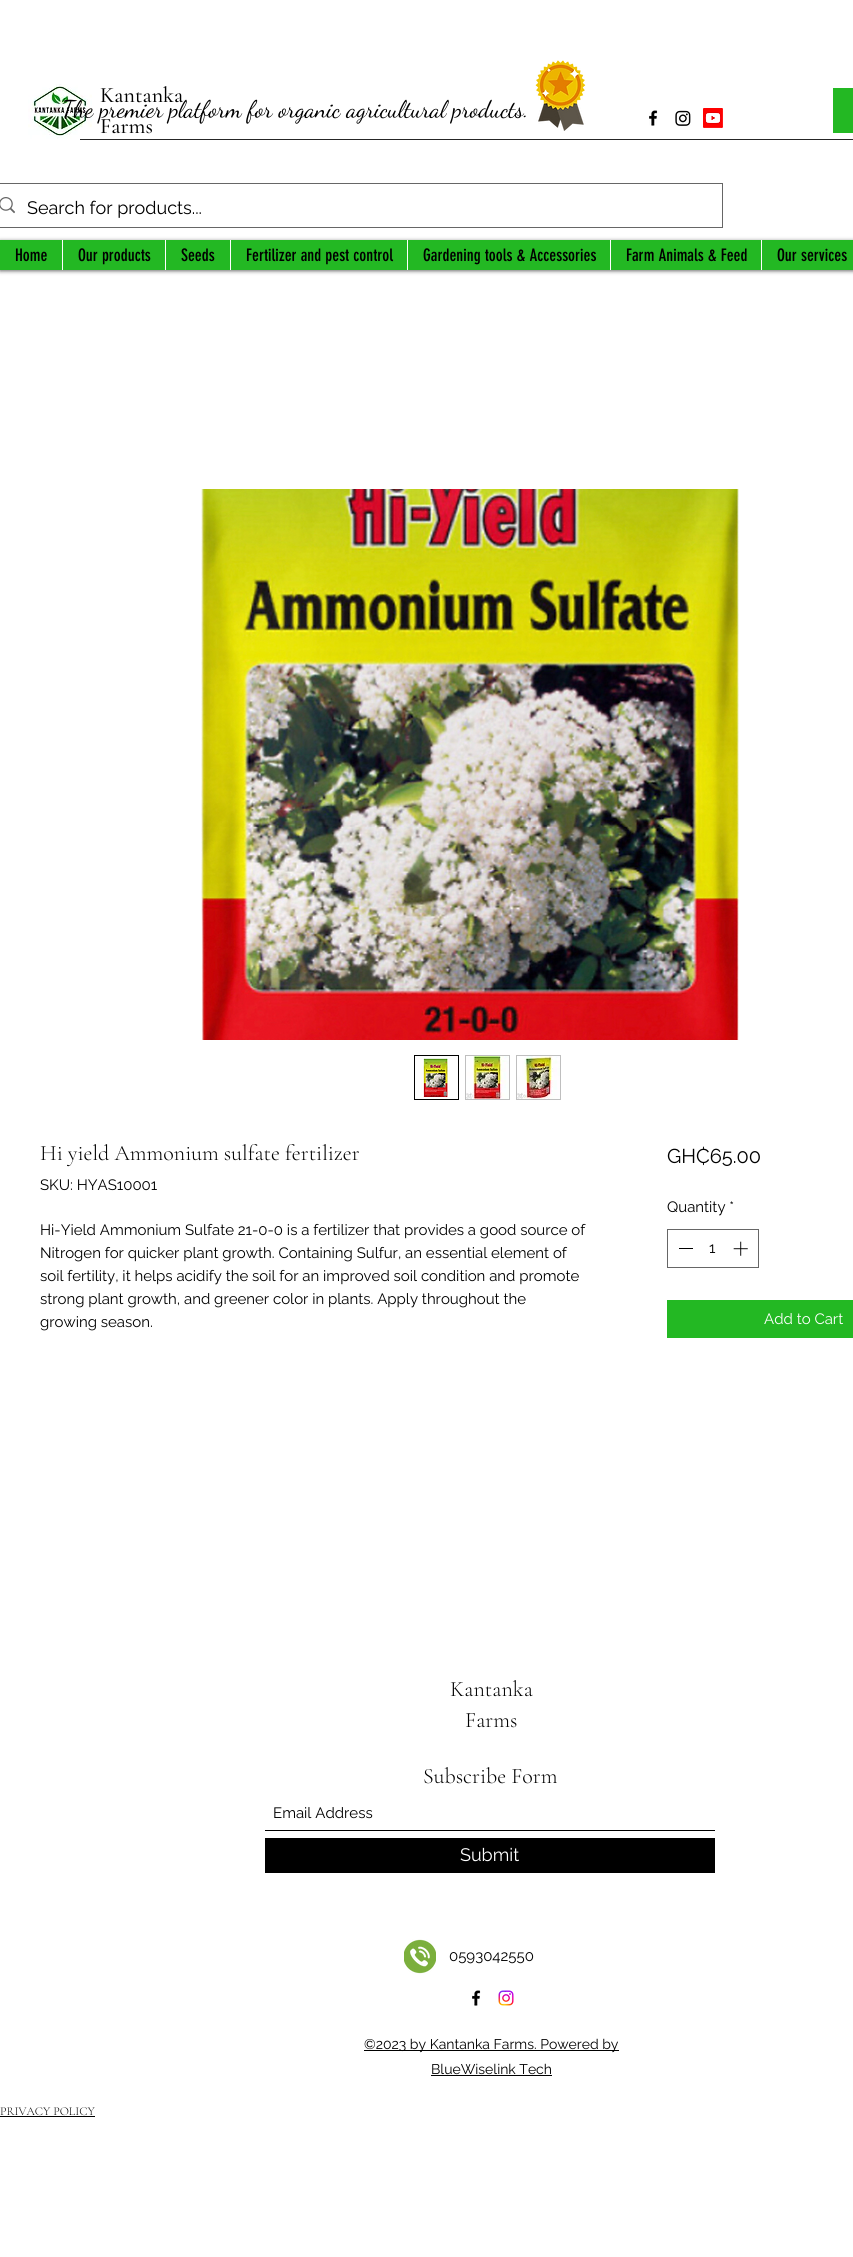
#include <cairo.h>
#include <math.h>
#include <stddef.h>


static void round_rect(cairo_t *cr, double x, double y, double w, double h, double r) {
    cairo_new_sub_path(cr);
    cairo_arc(cr, x + w - r, y + h - r, r, 0, M_PI / 2);
    cairo_arc(cr, x + r, y + h - r, r, M_PI / 2, M_PI);
    cairo_arc(cr, x + r, y + r, r, M_PI, 1.5 * M_PI);
    cairo_arc(cr, x + w - r, y + r, r, 1.5 * M_PI, 2 * M_PI);
    cairo_close_path(cr);
}

static void shadow(cairo_t *cr, double x, double y, double w, double h, double r, double blur, double alpha) {
    cairo_push_group_with_content(cr, CAIRO_CONTENT_ALPHA);
    cairo_set_operator(cr, CAIRO_OPERATOR_SOURCE);
    for (int i = 15; i >= -15 && fmin(w, h) + blur * i / 3 > 0; i -= 2) {
        double e = blur * i / 6;
        cairo_set_source_rgba(cr, 0, 0, 0, alpha * erfc((i - 1) / 8.5) / 2);
        round_rect(cr, x - e, y - e, w + 2 * e, h + 2 * e, fmax(0, fmin(r + e + blur * .6, fmin(w, h) / 2 + e)));
        cairo_fill(cr);
    }
    cairo_pattern_t *soft = cairo_pop_group(cr);
    cairo_mask(cr, soft);
    cairo_pattern_destroy(soft);
}

static void picture(cairo_t *cr, const char *path, double x, double y, double w, double h) {
    cairo_surface_t *image = cairo_image_surface_create_from_png(path);
    cairo_save(cr);
    cairo_set_source_surface(cr, image, x, y);
    cairo_rectangle(cr, x, y, w, h);
    cairo_fill(cr);
    cairo_restore(cr);
    cairo_surface_destroy(image);
}

int main(void) {
    cairo_surface_t *surface = cairo_image_surface_create(CAIRO_FORMAT_RGB24, 853, 2257);
    cairo_t *cr = cairo_create(surface);
    cairo_font_options_t *options = cairo_font_options_create();
    cairo_font_options_set_hint_metrics(options, CAIRO_HINT_METRICS_OFF);
    cairo_font_options_set_hint_style(options, CAIRO_HINT_STYLE_NONE);
    cairo_set_font_options(cr, options);
    cairo_set_miter_limit(cr, 4);
    cairo_set_source_rgb(cr, 1, 1, 1);
    cairo_paint(cr);
    picture(cr, "img1.png", 28, 84, 64, 55);
    cairo_select_font_face(cr, "Cormorant Garamond Medium", CAIRO_FONT_SLANT_NORMAL, CAIRO_FONT_WEIGHT_NORMAL);
    cairo_set_font_size(cr, 22);
    cairo_set_source_rgb(cr, 0, 0, 0);
    cairo_move_to(cr, 100, 102);
    cairo_show_text(cr, "Kantanka");
    cairo_move_to(cr, 100, 133);
    cairo_show_text(cr, "Farms");
    cairo_select_font_face(cr, "Dancing Script", CAIRO_FONT_SLANT_NORMAL, CAIRO_FONT_WEIGHT_NORMAL);
    cairo_set_font_size(cr, 24);
    cairo_move_to(cr, 62, 117);
    cairo_show_text(cr, "The premier platform for organic agricultural products.");
    picture(cr, "img2.png", 535, 60, 51, 71);
    picture(cr, "img3.png", 649, 110, 9, 16);
    picture(cr, "img4.png", 675, 110, 16, 16);
    picture(cr, "img5.png", 703, 108, 20, 20);
    cairo_set_source_rgb(cr, 0.137, 0.722, 0.137);
    cairo_rectangle(cr, 833, 88, 20, 45);
    cairo_fill(cr);
    cairo_rectangle(cr, -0.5, 183.5, 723, 44);
    cairo_set_source_rgb(cr, 0.4, 0.4, 0.4);
    cairo_set_line_width(cr, 1);
    cairo_stroke(cr);
    picture(cr, "img6.png", 0, 197, 15, 17);
    cairo_select_font_face(cr, "Raleway", CAIRO_FONT_SLANT_NORMAL, CAIRO_FONT_WEIGHT_NORMAL);
    cairo_set_font_size(cr, 18);
    cairo_set_source_rgb(cr, 0, 0, 0);
    cairo_move_to(cr, 27, 214);
    cairo_show_text(cr, "Search for products...");
    cairo_set_source_rgb(cr, 0.149, 0.149, 0.149);
    cairo_rectangle(cr, 80, 139, 773, 1);
    cairo_fill(cr);
    cairo_set_source_rgb(cr, 0, 0, 0);
    shadow(cr, 0, 241, 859, 30, 0, 2, 0.6);
    cairo_set_source_rgb(cr, 0.137, 0.722, 0.137);
    cairo_rectangle(cr, 0, 240, 853, 30);
    cairo_fill(cr);
    cairo_select_font_face(cr, "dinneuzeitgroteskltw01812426", CAIRO_FONT_SLANT_NORMAL, CAIRO_FONT_WEIGHT_NORMAL);
    cairo_set_font_size(cr, 17);
    cairo_set_source_rgb(cr, 0, 0, 0);
    cairo_move_to(cr, 15, 261);
    cairo_show_text(cr, "Home");
    cairo_set_source_rgb(cr, 1, 1, 1);
    cairo_rectangle(cr, 62, 240, 1, 30);
    cairo_fill(cr);
    cairo_set_source_rgb(cr, 0, 0, 0);
    cairo_move_to(cr, 78, 261);
    cairo_show_text(cr, "Our products");
    cairo_set_source_rgb(cr, 1, 1, 1);
    cairo_rectangle(cr, 165, 240, 1, 30);
    cairo_fill(cr);
    cairo_set_source_rgb(cr, 0, 0, 0);
    cairo_move_to(cr, 181, 261);
    cairo_show_text(cr, "Seeds");
    cairo_set_source_rgb(cr, 1, 1, 1);
    cairo_rectangle(cr, 230, 240, 1, 30);
    cairo_fill(cr);
    cairo_set_source_rgb(cr, 0, 0, 0);
    cairo_move_to(cr, 246, 261);
    cairo_show_text(cr, "Fertilizer and pest control");
    cairo_set_source_rgb(cr, 1, 1, 1);
    cairo_rectangle(cr, 407, 240, 1, 30);
    cairo_fill(cr);
    cairo_set_source_rgb(cr, 0, 0, 0);
    cairo_move_to(cr, 423, 261);
    cairo_show_text(cr, "Gardening tools & Accessories");
    cairo_set_source_rgb(cr, 1, 1, 1);
    cairo_rectangle(cr, 610, 240, 1, 30);
    cairo_fill(cr);
    cairo_set_source_rgb(cr, 0, 0, 0);
    cairo_move_to(cr, 626, 261);
    cairo_show_text(cr, "Farm Animals & Feed");
    cairo_set_source_rgb(cr, 1, 1, 1);
    cairo_rectangle(cr, 761, 240, 1, 30);
    cairo_fill(cr);
    cairo_set_source_rgb(cr, 0, 0, 0);
    cairo_move_to(cr, 777, 261);
    cairo_show_text(cr, "Our services");
    picture(cr, "img7.png", 201, 489, 538, 551);
    cairo_rectangle(cr, 414.5, 1055.5, 44, 44);
    cairo_stroke(cr);
    picture(cr, "img8.png", 415, 1056, 43, 43);
    cairo_set_source_rgb(cr, 0.749, 0.749, 0.749);
    cairo_rectangle(cr, 465, 1055, 45, 45);
    cairo_fill(cr);
    picture(cr, "img9.png", 466, 1056, 43, 43);
    cairo_rectangle(cr, 516, 1055, 45, 45);
    cairo_fill(cr);
    picture(cr, "img10.png", 517, 1056, 43, 43);
    cairo_select_font_face(cr, "Cormorant Garamond Light", CAIRO_FONT_SLANT_NORMAL, CAIRO_FONT_WEIGHT_NORMAL);
    cairo_set_font_size(cr, 22);
    cairo_set_source_rgb(cr, 0, 0, 0);
    cairo_move_to(cr, 40, 1160);
    cairo_show_text(cr, "Hi yield Ammonium sulfate fertilizer");
    cairo_select_font_face(cr, "Raleway", CAIRO_FONT_SLANT_NORMAL, CAIRO_FONT_WEIGHT_NORMAL);
    cairo_set_font_size(cr, 15);
    cairo_move_to(cr, 40, 1190);
    cairo_show_text(cr, "SKU: HYAS10001");
    cairo_move_to(cr, 40, 1235);
    cairo_show_text(cr, "Hi-Yield Ammonium Sulfate 21-0-0 is a fertilizer that provides a good source of");
    cairo_move_to(cr, 40, 1258);
    cairo_show_text(cr, "Nitrogen for quicker plant growth. Containing Sulfur, an essential element of");
    cairo_move_to(cr, 40, 1281);
    cairo_show_text(cr, "soil fertility, it helps acidify the soil for an improved soil condition and promote");
    cairo_move_to(cr, 40, 1304);
    cairo_show_text(cr, "strong plant growth, and greener color in plants. Apply throughout the");
    cairo_move_to(cr, 40, 1327);
    cairo_show_text(cr, "growing season.");
    cairo_set_font_size(cr, 20);
    cairo_move_to(cr, 667, 1163);
    cairo_show_text(cr, "GH₵65.00");
    cairo_set_font_size(cr, 15);
    cairo_move_to(cr, 667, 1212);
    cairo_show_text(cr, "Quantity *");
    cairo_rectangle(cr, 667.5, 1229.5, 91, 38);
    cairo_set_source_rgb(cr, 0.4, 0.4, 0.4);
    cairo_stroke(cr);
    cairo_set_source_rgb(cr, 0, 0, 0);
    cairo_rectangle(cr, 679, 1248, 14, 1);
    cairo_fill(cr);
    cairo_move_to(cr, 709, 1253);
    cairo_show_text(cr, "1");
    picture(cr, "img11.png", 733, 1241, 15, 15);
    cairo_set_source_rgb(cr, 0.137, 0.722, 0.137);
    cairo_rectangle(cr, 667, 1300, 186, 38);
    cairo_fill(cr);
    cairo_set_source_rgb(cr, 1, 1, 1);
    cairo_move_to(cr, 764, 1324);
    cairo_show_text(cr, "Add to Cart");
    cairo_select_font_face(cr, "Cormorant Garamond Light", CAIRO_FONT_SLANT_NORMAL, CAIRO_FONT_WEIGHT_NORMAL);
    cairo_set_font_size(cr, 22);
    cairo_set_source_rgb(cr, 0, 0, 0);
    cairo_move_to(cr, 450, 1696);
    cairo_show_text(cr, "Kantanka");
    cairo_move_to(cr, 465, 1727);
    cairo_show_text(cr, "Farms");
    cairo_move_to(cr, 423, 1783);
    cairo_show_text(cr, "Subscribe Form");
    cairo_rectangle(cr, 265, 1830, 450, 1);
    cairo_fill(cr);
    cairo_select_font_face(cr, "Raleway", CAIRO_FONT_SLANT_NORMAL, CAIRO_FONT_WEIGHT_NORMAL);
    cairo_set_font_size(cr, 15);
    cairo_move_to(cr, 273, 1818);
    cairo_show_text(cr, "Email Address");
    cairo_rectangle(cr, 265, 1838, 450, 35);
    cairo_fill(cr);
    cairo_set_font_size(cr, 18);
    cairo_set_source_rgb(cr, 1, 1, 1);
    cairo_move_to(cr, 460, 1861);
    cairo_show_text(cr, "Submit");
    picture(cr, "img12.png", 404, 1939, 32, 35);
    cairo_set_font_size(cr, 15);
    cairo_set_source_rgb(cr, 0, 0, 0);
    cairo_move_to(cr, 449, 1961);
    cairo_show_text(cr, "0593042550");
    picture(cr, "img3.png", 472, 1990, 9, 16);
    picture(cr, "img13.png", 498, 1990, 16, 16);
    cairo_rectangle(cr, 364, 2050, 255, 1);
    cairo_fill(cr);
    cairo_set_font_size(cr, 14);
    cairo_move_to(cr, 364, 2049);
    cairo_show_text(cr, "©2023 by Kantanka Farms. Powered by");
    cairo_move_to(cr, 431, 2074);
    cairo_show_text(cr, "BlueWiselink Tech");
    cairo_rectangle(cr, 431, 2075, 121, 1);
    cairo_fill(cr);
    cairo_select_font_face(cr, "Cormorant Garamond Light", CAIRO_FONT_SLANT_NORMAL, CAIRO_FONT_WEIGHT_NORMAL);
    cairo_set_font_size(cr, 12);
    cairo_move_to(cr, 0, 2115);
    cairo_show_text(cr, "PRIVACY POLICY");
    cairo_rectangle(cr, 0, 2116, 95, 1);
    cairo_fill(cr);
    cairo_surface_write_to_png(surface, "page.png");
    cairo_font_options_destroy(options);
    cairo_destroy(cr);
    cairo_surface_destroy(surface);
    return 0;
}
